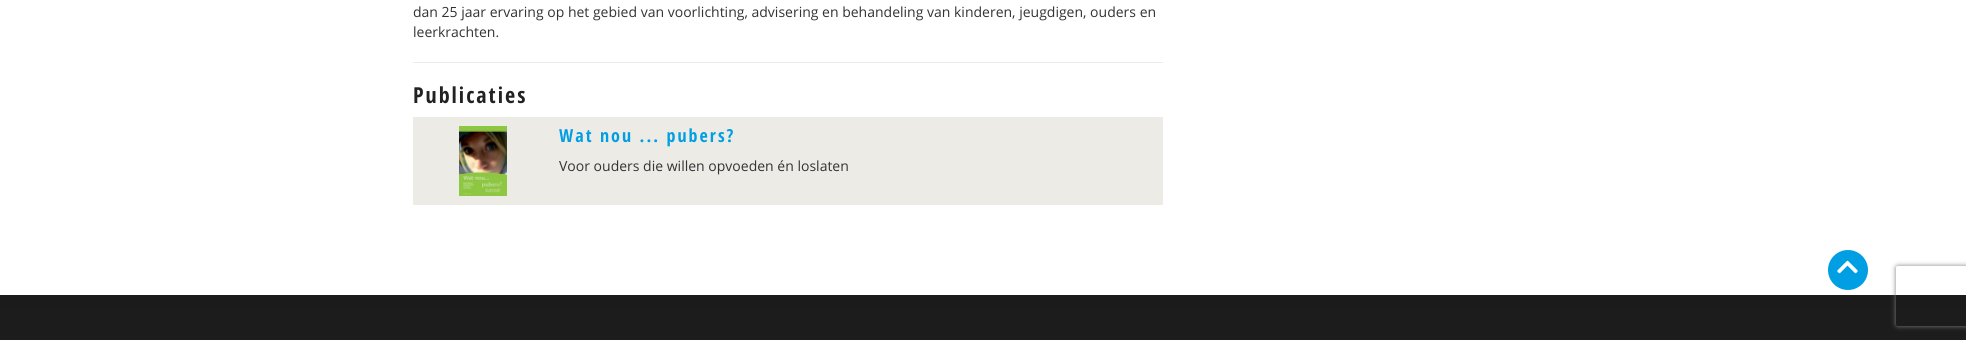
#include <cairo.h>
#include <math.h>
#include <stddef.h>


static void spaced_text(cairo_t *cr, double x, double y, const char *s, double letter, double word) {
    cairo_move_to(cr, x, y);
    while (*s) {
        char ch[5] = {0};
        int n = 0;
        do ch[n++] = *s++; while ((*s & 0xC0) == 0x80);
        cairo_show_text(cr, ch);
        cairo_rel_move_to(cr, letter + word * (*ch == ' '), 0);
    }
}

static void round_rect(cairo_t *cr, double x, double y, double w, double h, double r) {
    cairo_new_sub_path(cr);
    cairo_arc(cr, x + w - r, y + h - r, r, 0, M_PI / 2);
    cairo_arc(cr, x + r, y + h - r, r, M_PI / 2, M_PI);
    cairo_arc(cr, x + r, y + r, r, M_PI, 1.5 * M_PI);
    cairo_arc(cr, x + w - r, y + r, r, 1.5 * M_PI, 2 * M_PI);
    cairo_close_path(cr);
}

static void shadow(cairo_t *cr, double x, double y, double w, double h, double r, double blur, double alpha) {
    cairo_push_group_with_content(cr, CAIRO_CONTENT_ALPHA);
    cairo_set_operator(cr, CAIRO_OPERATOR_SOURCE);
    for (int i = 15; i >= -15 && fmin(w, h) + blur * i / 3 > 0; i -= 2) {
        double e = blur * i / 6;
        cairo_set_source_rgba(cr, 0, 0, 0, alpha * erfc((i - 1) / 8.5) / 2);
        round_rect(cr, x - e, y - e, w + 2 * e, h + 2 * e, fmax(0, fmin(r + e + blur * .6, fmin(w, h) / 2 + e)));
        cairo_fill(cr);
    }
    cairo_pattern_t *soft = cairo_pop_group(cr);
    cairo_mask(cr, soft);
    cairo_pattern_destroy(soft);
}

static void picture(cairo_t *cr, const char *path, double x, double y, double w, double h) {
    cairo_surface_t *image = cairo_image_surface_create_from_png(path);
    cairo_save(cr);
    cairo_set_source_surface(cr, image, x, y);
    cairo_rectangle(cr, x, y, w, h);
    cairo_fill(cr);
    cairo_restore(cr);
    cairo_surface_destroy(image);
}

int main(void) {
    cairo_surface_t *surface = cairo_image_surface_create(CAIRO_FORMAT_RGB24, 1966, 340);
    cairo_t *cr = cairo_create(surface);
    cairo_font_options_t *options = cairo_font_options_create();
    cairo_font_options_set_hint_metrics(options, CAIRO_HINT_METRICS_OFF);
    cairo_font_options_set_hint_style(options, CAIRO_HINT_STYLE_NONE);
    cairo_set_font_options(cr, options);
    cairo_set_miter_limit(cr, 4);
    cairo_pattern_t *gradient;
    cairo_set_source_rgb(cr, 1, 1, 1);
    cairo_paint(cr);
    cairo_select_font_face(cr, "Open Sans", CAIRO_FONT_SLANT_NORMAL, CAIRO_FONT_WEIGHT_NORMAL);
    cairo_set_font_size(cr, 14);
    cairo_set_source_rgb(cr, 0.2, 0.2, 0.2);
    cairo_move_to(cr, 413, 17);
    cairo_show_text(cr, "dan 25 jaar ervaring op het gebied van voorlichting, advisering en behandeling van kinderen, jeugdigen, ouders en");
    cairo_move_to(cr, 413, 37);
    cairo_show_text(cr, "leerkrachten.");
    cairo_set_source_rgb(cr, 0.929, 0.918, 0.902);
    cairo_rectangle(cr, 413, 62, 750, 1);
    cairo_fill(cr);
    cairo_select_font_face(cr, "Open Sans Condensed", CAIRO_FONT_SLANT_NORMAL, CAIRO_FONT_WEIGHT_BOLD);
    cairo_set_font_size(cr, 22);
    cairo_set_source_rgb(cr, 0.133, 0.133, 0.133);
    spaced_text(cr, 413, 103, "Publicaties", 2, 0);
    cairo_set_source_rgb(cr, 0.929, 0.918, 0.902);
    cairo_rectangle(cr, 413, 117, 750, 88);
    cairo_fill(cr);
    picture(cr, "img1.png", 459, 126, 48, 70);
    cairo_set_font_size(cr, 18);
    cairo_set_source_rgb(cr, 0, 0.624, 0.89);
    spaced_text(cr, 559, 142, "Wat nou ... pubers?", 2, 0);
    cairo_select_font_face(cr, "Open Sans", CAIRO_FONT_SLANT_NORMAL, CAIRO_FONT_WEIGHT_NORMAL);
    cairo_set_font_size(cr, 14);
    cairo_set_source_rgb(cr, 0.2, 0.2, 0.2);
    cairo_move_to(cr, 559, 171);
    cairo_show_text(cr, "Voor ouders die willen opvoeden én loslaten");
    gradient = cairo_pattern_create_linear(983, 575, 983, 295);
    cairo_pattern_add_color_stop_rgba(gradient, 0, 0.145, 0.145, 0.145, 1);
    cairo_pattern_add_color_stop_rgba(gradient, 1, 0.106, 0.106, 0.106, 1);
    cairo_set_source(cr, gradient);
    cairo_pattern_destroy(gradient);
    cairo_rectangle(cr, 0, 295, 1966, 45);
    cairo_fill(cr);
    cairo_set_source_rgb(cr, 0, 0.624, 0.89);
    cairo_arc(cr, 1848, 270, 20, 0, 2 * M_PI);
    cairo_fill(cr);
    picture(cr, "img2.png", 1837, 260, 21, 14);
    cairo_save(cr);
    cairo_set_fill_rule(cr, CAIRO_FILL_RULE_EVEN_ODD);
    cairo_new_path(cr);
    cairo_move_to(cr, 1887, 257);
    cairo_line_to(cr, 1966, 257);
    cairo_line_to(cr, 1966, 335);
    cairo_line_to(cr, 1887, 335);
    cairo_close_path(cr);
    cairo_move_to(cr, 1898, 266);
    cairo_line_to(cr, 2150, 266);
    cairo_curve_to(cr, 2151, 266, 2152, 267, 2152, 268);
    cairo_line_to(cr, 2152, 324);
    cairo_curve_to(cr, 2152, 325, 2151, 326, 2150, 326);
    cairo_line_to(cr, 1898, 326);
    cairo_curve_to(cr, 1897, 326, 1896, 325, 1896, 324);
    cairo_line_to(cr, 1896, 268);
    cairo_curve_to(cr, 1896, 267, 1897, 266, 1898, 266);
    cairo_close_path(cr);
    cairo_clip(cr);
    cairo_set_source_rgb(cr, 0.502, 0.502, 0.502);
    shadow(cr, 1896, 266, 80, 60, 2, 2.5, 1);
    cairo_restore(cr);
    cairo_surface_write_to_png(surface, "page.png");
    cairo_font_options_destroy(options);
    cairo_destroy(cr);
    cairo_surface_destroy(surface);
    return 0;
}
